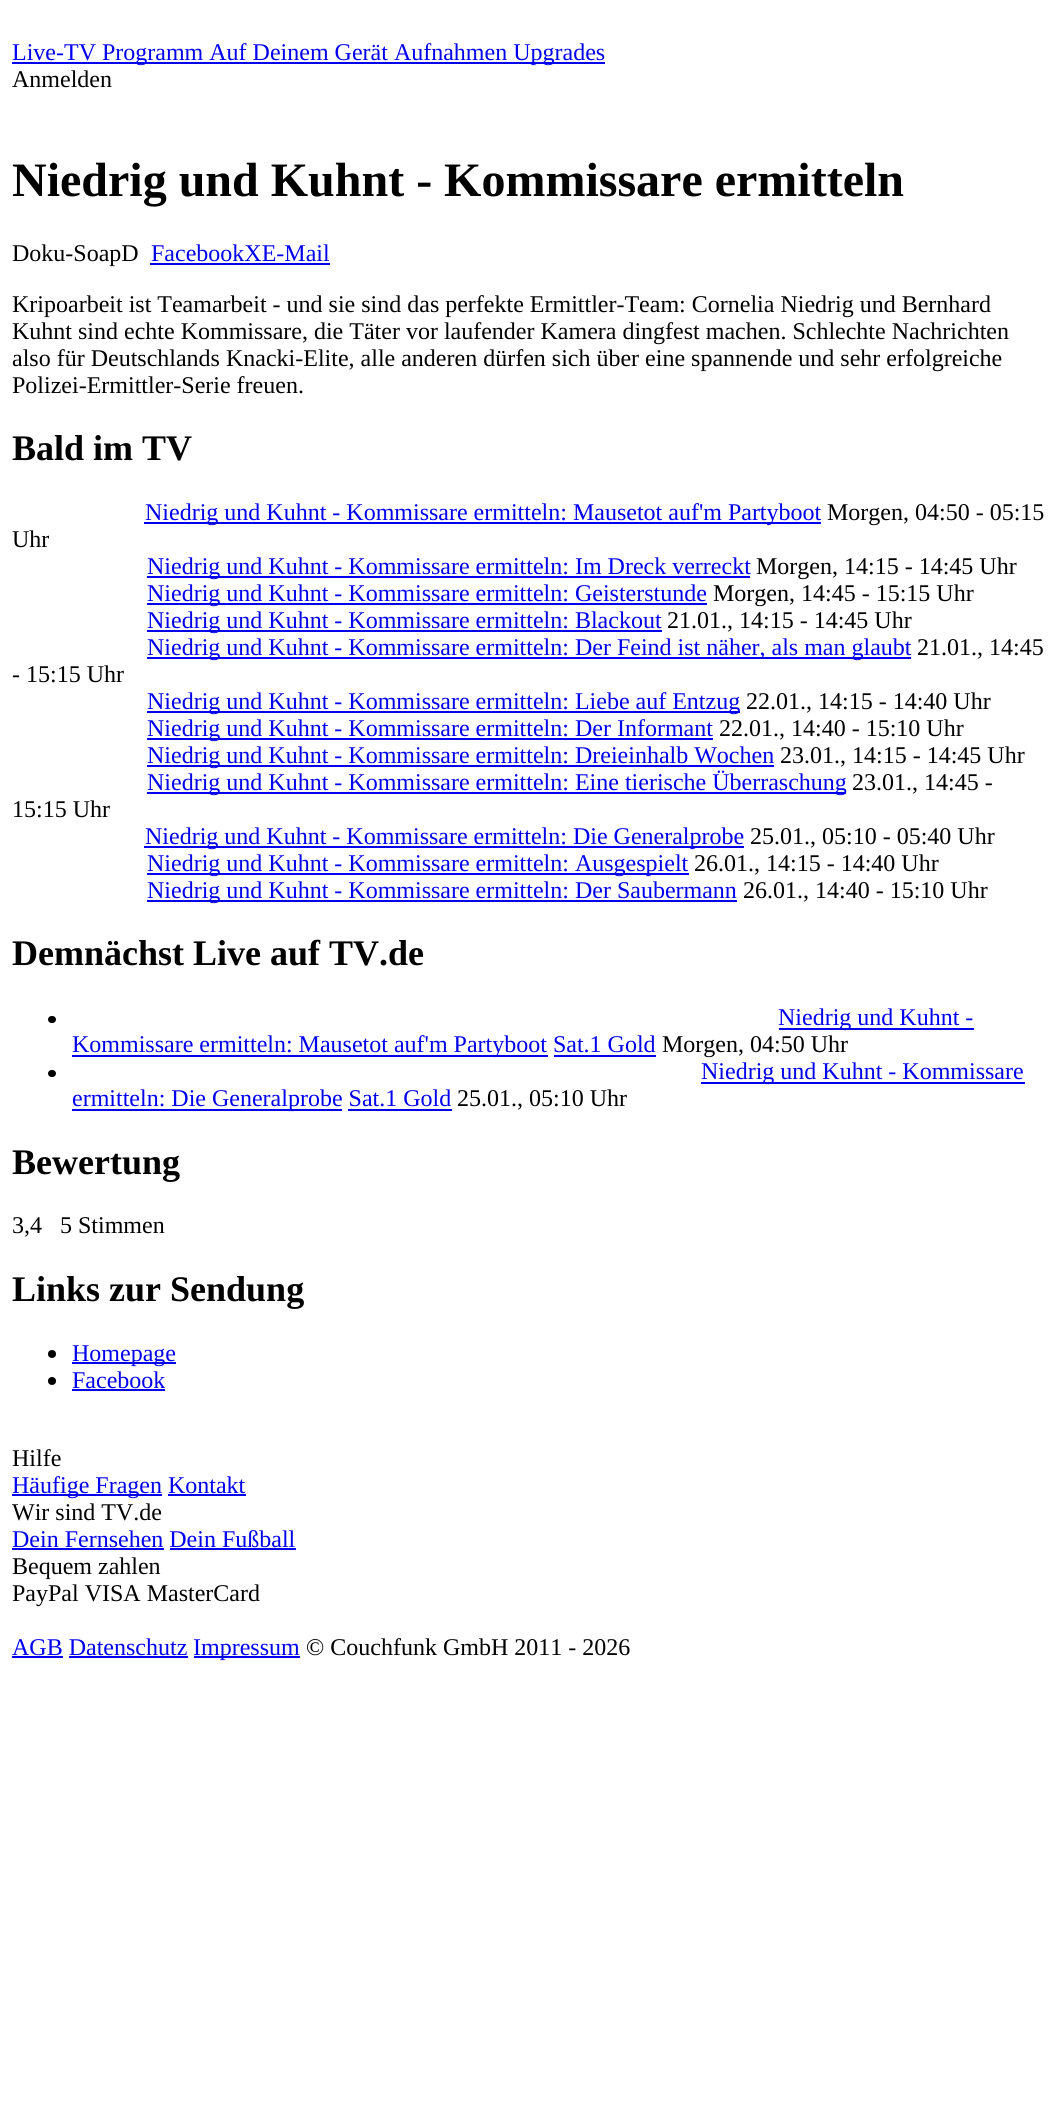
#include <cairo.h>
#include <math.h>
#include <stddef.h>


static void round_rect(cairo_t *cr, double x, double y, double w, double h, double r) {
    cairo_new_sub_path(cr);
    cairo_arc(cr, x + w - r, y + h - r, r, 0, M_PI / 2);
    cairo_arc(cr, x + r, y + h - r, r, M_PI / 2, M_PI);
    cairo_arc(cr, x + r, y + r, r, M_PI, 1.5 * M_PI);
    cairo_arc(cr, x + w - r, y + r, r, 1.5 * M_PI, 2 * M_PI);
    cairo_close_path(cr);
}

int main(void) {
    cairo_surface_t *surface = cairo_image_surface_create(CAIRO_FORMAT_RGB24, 1063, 2118);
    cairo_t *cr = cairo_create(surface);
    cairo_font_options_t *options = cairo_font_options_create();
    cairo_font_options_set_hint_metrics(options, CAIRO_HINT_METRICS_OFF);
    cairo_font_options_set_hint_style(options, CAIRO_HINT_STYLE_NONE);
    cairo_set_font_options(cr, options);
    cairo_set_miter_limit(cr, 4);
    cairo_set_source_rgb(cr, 1, 1, 1);
    cairo_paint(cr);
    cairo_set_source_rgb(cr, 0, 0, 0.933);
    cairo_rectangle(cr, 12, 62, 593, 2);
    cairo_fill(cr);
    cairo_select_font_face(cr, "Liberation Serif", CAIRO_FONT_SLANT_NORMAL, CAIRO_FONT_WEIGHT_NORMAL);
    cairo_set_font_size(cr, 24);
    cairo_move_to(cr, 12, 60);
    cairo_show_text(cr, "Live-TV Programm Auf Deinem Gerät Aufnahmen Upgrades");
    cairo_set_source_rgb(cr, 0, 0, 0);
    cairo_move_to(cr, 12, 87);
    cairo_show_text(cr, "Anmelden");
    cairo_select_font_face(cr, "Liberation Serif", CAIRO_FONT_SLANT_NORMAL, CAIRO_FONT_WEIGHT_BOLD);
    cairo_set_font_size(cr, 48);
    cairo_move_to(cr, 12, 196);
    cairo_show_text(cr, "Niedrig und Kuhnt - Kommissare ermitteln");
    cairo_select_font_face(cr, "Liberation Serif", CAIRO_FONT_SLANT_NORMAL, CAIRO_FONT_WEIGHT_NORMAL);
    cairo_set_font_size(cr, 24);
    cairo_move_to(cr, 12, 261);
    cairo_show_text(cr, "Doku-SoapD");
    cairo_set_source_rgb(cr, 0, 0, 0.933);
    cairo_move_to(cr, 151, 261);
    cairo_show_text(cr, "FacebookXE-Mail");
    cairo_rectangle(cr, 150, 263, 180, 2);
    cairo_fill(cr);
    cairo_set_source_rgb(cr, 0, 0, 0);
    cairo_move_to(cr, 12, 312);
    cairo_show_text(cr, "Kripoarbeit ist Teamarbeit - und sie sind das perfekte Ermittler-Team: Cornelia Niedrig und Bernhard");
    cairo_move_to(cr, 12, 339);
    cairo_show_text(cr, "Kuhnt sind echte Kommissare, die Täter vor laufender Kamera dingfest machen. Schlechte Nachrichten");
    cairo_move_to(cr, 12, 366);
    cairo_show_text(cr, "also für Deutschlands Knacki-Elite, alle anderen dürfen sich über eine spannende und sehr erfolgreiche");
    cairo_move_to(cr, 12, 393);
    cairo_show_text(cr, "Polizei-Ermittler-Serie freuen.");
    cairo_select_font_face(cr, "Liberation Serif", CAIRO_FONT_SLANT_NORMAL, CAIRO_FONT_WEIGHT_BOLD);
    cairo_set_font_size(cr, 36);
    cairo_move_to(cr, 12, 460);
    cairo_show_text(cr, "Bald im TV");
    cairo_set_source_rgb(cr, 0, 0, 0.933);
    cairo_rectangle(cr, 144, 522, 677, 2);
    cairo_fill(cr);
    cairo_select_font_face(cr, "Liberation Serif", CAIRO_FONT_SLANT_NORMAL, CAIRO_FONT_WEIGHT_NORMAL);
    cairo_set_font_size(cr, 24);
    cairo_move_to(cr, 145, 520);
    cairo_show_text(cr, "Niedrig und Kuhnt - Kommissare ermitteln: Mausetot auf'm Partyboot");
    cairo_set_source_rgb(cr, 0, 0, 0);
    cairo_move_to(cr, 827, 520);
    cairo_show_text(cr, "Morgen, 04:50 - 05:15");
    cairo_move_to(cr, 12, 547);
    cairo_show_text(cr, "Uhr");
    cairo_set_source_rgb(cr, 0, 0, 0.933);
    cairo_rectangle(cr, 147, 576, 603, 2);
    cairo_fill(cr);
    cairo_move_to(cr, 147, 574);
    cairo_show_text(cr, "Niedrig und Kuhnt - Kommissare ermitteln: Im Dreck verreckt");
    cairo_set_source_rgb(cr, 0, 0, 0);
    cairo_move_to(cr, 756, 574);
    cairo_show_text(cr, "Morgen, 14:15 - 14:45 Uhr");
    cairo_set_source_rgb(cr, 0, 0, 0.933);
    cairo_rectangle(cr, 147, 603, 560, 2);
    cairo_fill(cr);
    cairo_move_to(cr, 147, 601);
    cairo_show_text(cr, "Niedrig und Kuhnt - Kommissare ermitteln: Geisterstunde");
    cairo_set_source_rgb(cr, 0, 0, 0);
    cairo_move_to(cr, 713, 601);
    cairo_show_text(cr, "Morgen, 14:45 - 15:15 Uhr");
    cairo_set_source_rgb(cr, 0, 0, 0.933);
    cairo_rectangle(cr, 147, 630, 515, 2);
    cairo_fill(cr);
    cairo_move_to(cr, 147, 628);
    cairo_show_text(cr, "Niedrig und Kuhnt - Kommissare ermitteln: Blackout");
    cairo_set_source_rgb(cr, 0, 0, 0);
    cairo_move_to(cr, 667, 628);
    cairo_show_text(cr, "21.01., 14:15 - 14:45 Uhr");
    cairo_set_source_rgb(cr, 0, 0, 0.933);
    cairo_rectangle(cr, 147, 657, 764, 2);
    cairo_fill(cr);
    cairo_move_to(cr, 147, 655);
    cairo_show_text(cr, "Niedrig und Kuhnt - Kommissare ermitteln: Der Feind ist näher, als man glaubt");
    cairo_set_source_rgb(cr, 0, 0, 0);
    cairo_move_to(cr, 917, 655);
    cairo_show_text(cr, "21.01., 14:45");
    cairo_move_to(cr, 12, 682);
    cairo_show_text(cr, "- 15:15 Uhr");
    cairo_set_source_rgb(cr, 0, 0, 0.933);
    cairo_rectangle(cr, 147, 711, 593, 2);
    cairo_fill(cr);
    cairo_move_to(cr, 147, 709);
    cairo_show_text(cr, "Niedrig und Kuhnt - Kommissare ermitteln: Liebe auf Entzug");
    cairo_set_source_rgb(cr, 0, 0, 0);
    cairo_move_to(cr, 746, 709);
    cairo_show_text(cr, "22.01., 14:15 - 14:40 Uhr");
    cairo_set_source_rgb(cr, 0, 0, 0.933);
    cairo_rectangle(cr, 147, 738, 566, 2);
    cairo_fill(cr);
    cairo_move_to(cr, 147, 736);
    cairo_show_text(cr, "Niedrig und Kuhnt - Kommissare ermitteln: Der Informant");
    cairo_set_source_rgb(cr, 0, 0, 0);
    cairo_move_to(cr, 719, 736);
    cairo_show_text(cr, "22.01., 14:40 - 15:10 Uhr");
    cairo_set_source_rgb(cr, 0, 0, 0.933);
    cairo_rectangle(cr, 147, 765, 627, 2);
    cairo_fill(cr);
    cairo_move_to(cr, 147, 763);
    cairo_show_text(cr, "Niedrig und Kuhnt - Kommissare ermitteln: Dreieinhalb Wochen");
    cairo_set_source_rgb(cr, 0, 0, 0);
    cairo_move_to(cr, 780, 763);
    cairo_show_text(cr, "23.01., 14:15 - 14:45 Uhr");
    cairo_set_source_rgb(cr, 0, 0, 0.933);
    cairo_rectangle(cr, 147, 792, 699, 2);
    cairo_fill(cr);
    cairo_move_to(cr, 147, 790);
    cairo_show_text(cr, "Niedrig und Kuhnt - Kommissare ermitteln: Eine tierische Überraschung");
    cairo_set_source_rgb(cr, 0, 0, 0);
    cairo_move_to(cr, 852, 790);
    cairo_show_text(cr, "23.01., 14:45 -");
    cairo_move_to(cr, 12, 817);
    cairo_show_text(cr, "15:15 Uhr");
    cairo_set_source_rgb(cr, 0, 0, 0.933);
    cairo_rectangle(cr, 144, 846, 600, 2);
    cairo_fill(cr);
    cairo_move_to(cr, 145, 844);
    cairo_show_text(cr, "Niedrig und Kuhnt - Kommissare ermitteln: Die Generalprobe");
    cairo_set_source_rgb(cr, 0, 0, 0);
    cairo_move_to(cr, 750, 844);
    cairo_show_text(cr, "25.01., 05:10 - 05:40 Uhr");
    cairo_set_source_rgb(cr, 0, 0, 0.933);
    cairo_rectangle(cr, 147, 873, 542, 2);
    cairo_fill(cr);
    cairo_move_to(cr, 147, 871);
    cairo_show_text(cr, "Niedrig und Kuhnt - Kommissare ermitteln: Ausgespielt");
    cairo_set_source_rgb(cr, 0, 0, 0);
    cairo_move_to(cr, 694, 871);
    cairo_show_text(cr, "26.01., 14:15 - 14:40 Uhr");
    cairo_set_source_rgb(cr, 0, 0, 0.933);
    cairo_rectangle(cr, 147, 900, 590, 2);
    cairo_fill(cr);
    cairo_move_to(cr, 147, 898);
    cairo_show_text(cr, "Niedrig und Kuhnt - Kommissare ermitteln: Der Saubermann");
    cairo_set_source_rgb(cr, 0, 0, 0);
    cairo_move_to(cr, 743, 898);
    cairo_show_text(cr, "26.01., 14:40 - 15:10 Uhr");
    cairo_select_font_face(cr, "Liberation Serif", CAIRO_FONT_SLANT_NORMAL, CAIRO_FONT_WEIGHT_BOLD);
    cairo_set_font_size(cr, 36);
    cairo_move_to(cr, 12, 965);
    cairo_show_text(cr, "Demnächst Live auf TV.de");
    round_rect(cr, 48, 1016, 8, 7, 3.5);
    cairo_fill(cr);
    cairo_set_source_rgb(cr, 0, 0, 0.933);
    cairo_rectangle(cr, 779, 1028, 195, 2);
    cairo_fill(cr);
    cairo_select_font_face(cr, "Liberation Serif", CAIRO_FONT_SLANT_NORMAL, CAIRO_FONT_WEIGHT_NORMAL);
    cairo_set_font_size(cr, 24);
    cairo_move_to(cr, 778, 1025);
    cairo_show_text(cr, "Niedrig und Kuhnt -");
    cairo_rectangle(cr, 72, 1055, 476, 2);
    cairo_fill(cr);
    cairo_move_to(cr, 72, 1052);
    cairo_show_text(cr, "Kommissare ermitteln: Mausetot auf'm Partyboot Sat.1 Gold");
    cairo_set_source_rgb(cr, 0, 0, 0);
    cairo_move_to(cr, 662, 1052);
    cairo_show_text(cr, "Morgen, 04:50 Uhr");
    cairo_set_source_rgb(cr, 0, 0, 0.933);
    cairo_rectangle(cr, 554, 1055, 102, 2);
    cairo_fill(cr);
    cairo_set_source_rgb(cr, 0, 0, 0);
    round_rect(cr, 48, 1070, 8, 7, 3.5);
    cairo_fill(cr);
    cairo_set_source_rgb(cr, 0, 0, 0.933);
    cairo_rectangle(cr, 701, 1082, 324, 2);
    cairo_fill(cr);
    cairo_move_to(cr, 701, 1079);
    cairo_show_text(cr, "Niedrig und Kuhnt - Kommissare");
    cairo_rectangle(cr, 72, 1109, 270, 2);
    cairo_fill(cr);
    cairo_move_to(cr, 72, 1106);
    cairo_show_text(cr, "ermitteln: Die Generalprobe Sat.1 Gold");
    cairo_set_source_rgb(cr, 0, 0, 0);
    cairo_move_to(cr, 457, 1106);
    cairo_show_text(cr, "25.01., 05:10 Uhr");
    cairo_set_source_rgb(cr, 0, 0, 0.933);
    cairo_rectangle(cr, 348, 1109, 104, 2);
    cairo_fill(cr);
    cairo_select_font_face(cr, "Liberation Serif", CAIRO_FONT_SLANT_NORMAL, CAIRO_FONT_WEIGHT_BOLD);
    cairo_set_font_size(cr, 36);
    cairo_set_source_rgb(cr, 0, 0, 0);
    cairo_move_to(cr, 12, 1174);
    cairo_show_text(cr, "Bewertung");
    cairo_select_font_face(cr, "Liberation Serif", CAIRO_FONT_SLANT_NORMAL, CAIRO_FONT_WEIGHT_NORMAL);
    cairo_set_font_size(cr, 24);
    cairo_move_to(cr, 12, 1233);
    cairo_show_text(cr, "3,4");
    cairo_move_to(cr, 60, 1233);
    cairo_show_text(cr, "5 Stimmen");
    cairo_select_font_face(cr, "Liberation Serif", CAIRO_FONT_SLANT_NORMAL, CAIRO_FONT_WEIGHT_BOLD);
    cairo_set_font_size(cr, 36);
    cairo_move_to(cr, 12, 1301);
    cairo_show_text(cr, "Links zur Sendung");
    cairo_new_path(cr);
    cairo_arc(cr, 52, 1354, 4, 0, 2 * M_PI);
    cairo_fill(cr);
    cairo_set_source_rgb(cr, 0, 0, 0.933);
    cairo_rectangle(cr, 72, 1362, 104, 2);
    cairo_fill(cr);
    cairo_select_font_face(cr, "Liberation Serif", CAIRO_FONT_SLANT_NORMAL, CAIRO_FONT_WEIGHT_NORMAL);
    cairo_set_font_size(cr, 24);
    cairo_move_to(cr, 72, 1361);
    cairo_show_text(cr, "Homepage");
    cairo_set_source_rgb(cr, 0, 0, 0);
    cairo_new_path(cr);
    cairo_arc(cr, 52, 1381, 4, 0, 2 * M_PI);
    cairo_fill(cr);
    cairo_set_source_rgb(cr, 0, 0, 0.933);
    cairo_move_to(cr, 72, 1388);
    cairo_show_text(cr, "Facebook");
    cairo_rectangle(cr, 72, 1389, 93, 2);
    cairo_fill(cr);
    cairo_set_source_rgb(cr, 0, 0, 0);
    cairo_move_to(cr, 12, 1466);
    cairo_show_text(cr, "Hilfe");
    cairo_set_source_rgb(cr, 0, 0, 0.933);
    cairo_rectangle(cr, 12, 1494, 150, 2);
    cairo_fill(cr);
    cairo_move_to(cr, 12, 1493);
    cairo_show_text(cr, "Häufige Fragen Kontakt");
    cairo_rectangle(cr, 168, 1494, 78, 2);
    cairo_fill(cr);
    cairo_set_source_rgb(cr, 0, 0, 0);
    cairo_move_to(cr, 12, 1520);
    cairo_show_text(cr, "Wir sind TV.de");
    cairo_set_source_rgb(cr, 0, 0, 0.933);
    cairo_move_to(cr, 12, 1547);
    cairo_show_text(cr, "Dein Fernsehen Dein Fußball");
    cairo_rectangle(cr, 12, 1548, 152, 2);
    cairo_fill(cr);
    cairo_rectangle(cr, 170, 1548, 126, 2);
    cairo_fill(cr);
    cairo_set_source_rgb(cr, 0, 0, 0);
    cairo_move_to(cr, 12, 1574);
    cairo_show_text(cr, "Bequem zahlen");
    cairo_move_to(cr, 12, 1601);
    cairo_show_text(cr, "PayPal VISA MasterCard");
    cairo_set_source_rgb(cr, 0, 0, 0.933);
    cairo_move_to(cr, 12, 1655);
    cairo_show_text(cr, "AGB Datenschutz");
    cairo_rectangle(cr, 12, 1656, 51, 2);
    cairo_fill(cr);
    cairo_rectangle(cr, 194, 1656, 106, 2);
    cairo_fill(cr);
    cairo_move_to(cr, 193, 1655);
    cairo_show_text(cr, "Impressum");
    cairo_set_source_rgb(cr, 0, 0, 0);
    cairo_move_to(cr, 306, 1655);
    cairo_show_text(cr, "© Couchfunk GmbH 2011 - 2026");
    cairo_set_source_rgb(cr, 0, 0, 0.933);
    cairo_rectangle(cr, 69, 1656, 119, 2);
    cairo_fill(cr);
    cairo_surface_write_to_png(surface, "page.png");
    cairo_font_options_destroy(options);
    cairo_destroy(cr);
    cairo_surface_destroy(surface);
    return 0;
}
